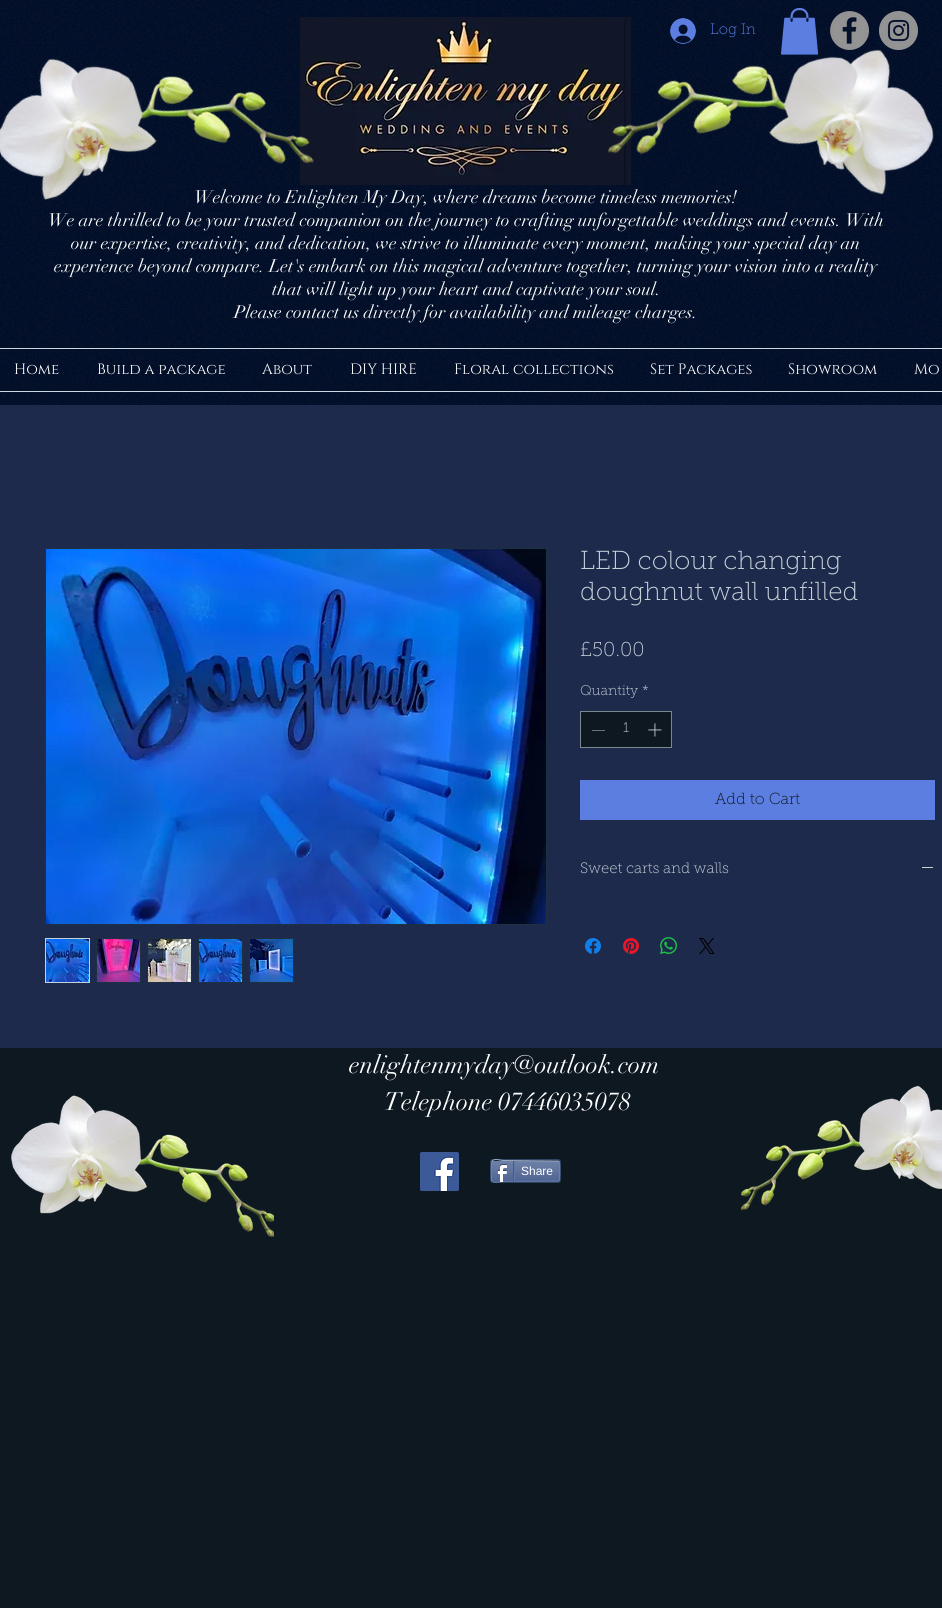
#include <cairo.h>
#include <math.h>
#include <stddef.h>


static void round_rect(cairo_t *cr, double x, double y, double w, double h, double r) {
    cairo_new_sub_path(cr);
    cairo_arc(cr, x + w - r, y + h - r, r, 0, M_PI / 2);
    cairo_arc(cr, x + r, y + h - r, r, M_PI / 2, M_PI);
    cairo_arc(cr, x + r, y + r, r, M_PI, 1.5 * M_PI);
    cairo_arc(cr, x + w - r, y + r, r, 1.5 * M_PI, 2 * M_PI);
    cairo_close_path(cr);
}

static void picture(cairo_t *cr, const char *path, double x, double y, double w, double h) {
    cairo_surface_t *image = cairo_image_surface_create_from_png(path);
    cairo_save(cr);
    cairo_set_source_surface(cr, image, x, y);
    cairo_rectangle(cr, x, y, w, h);
    cairo_fill(cr);
    cairo_restore(cr);
    cairo_surface_destroy(image);
}

int main(void) {
    cairo_surface_t *surface = cairo_image_surface_create(CAIRO_FORMAT_RGB24, 942, 1608);
    cairo_t *cr = cairo_create(surface);
    cairo_font_options_t *options = cairo_font_options_create();
    cairo_font_options_set_hint_metrics(options, CAIRO_HINT_METRICS_OFF);
    cairo_font_options_set_hint_style(options, CAIRO_HINT_STYLE_NONE);
    cairo_set_font_options(cr, options);
    cairo_set_miter_limit(cr, 4);
    cairo_set_source_rgb(cr, 0.055, 0.094, 0.129);
    cairo_paint(cr);
    cairo_set_source_rgb(cr, 0.004, 0.055, 0.161);
    cairo_rectangle(cr, 0, 0, 942, 405);
    cairo_fill(cr);
    picture(cr, "img1.png", 0, 0, 942, 405);
    picture(cr, "img2.png", 300, 17, 331, 168);
    picture(cr, "img3.png", 670, 18, 26, 26);
    cairo_select_font_face(cr, "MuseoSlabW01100 Thin", CAIRO_FONT_SLANT_NORMAL, CAIRO_FONT_WEIGHT_NORMAL);
    cairo_set_font_size(cr, 15);
    cairo_set_source_rgb(cr, 0.357, 0.494, 0.878);
    cairo_move_to(cr, 710, 34);
    cairo_show_text(cr, "Log In");
    picture(cr, "img4.png", 781, 8, 38, 47);
    picture(cr, "img5.png", 830, 11, 39, 39);
    picture(cr, "img6.png", 879, 11, 39, 39);
    picture(cr, "img7.png", 0, 58, 314, 142);
    picture(cr, "img8.png", 607, 49, 327, 146);
    cairo_select_font_face(cr, "didot", CAIRO_FONT_SLANT_NORMAL, CAIRO_FONT_WEIGHT_NORMAL);
    cairo_set_font_size(cr, 18);
    cairo_set_source_rgb(cr, 1, 1, 1);
    cairo_move_to(cr, 194, 203);
    cairo_show_text(cr, "Welcome to Enlighten My Day, where dreams become timeless memories!");
    cairo_move_to(cr, 48, 226);
    cairo_show_text(cr, "We are thrilled to be your trusted companion on the journey to crafting unforgettable weddings and events. With");
    cairo_move_to(cr, 71, 249);
    cairo_show_text(cr, "our expertise, creativity, and dedication, we strive to illuminate every moment, making your special day an");
    cairo_move_to(cr, 54, 272);
    cairo_show_text(cr, "experience beyond compare. Let's embark on this magical adventure together, turning your vision into a reality");
    cairo_move_to(cr, 272, 295);
    cairo_show_text(cr, "that will light up your heart and captivate your soul.");
    cairo_move_to(cr, 234, 318);
    cairo_show_text(cr, "Please contact us directly for availability and mileage charges.");
    cairo_set_source_rgb(cr, 0.8, 0.851, 0.882);
    cairo_rectangle(cr, 0, 348, 942, 1);
    cairo_fill(cr);
    cairo_rectangle(cr, 0, 391, 942, 1);
    cairo_fill(cr);
    cairo_select_font_face(cr, "Cinzel", CAIRO_FONT_SLANT_NORMAL, CAIRO_FONT_WEIGHT_NORMAL);
    cairo_set_font_size(cr, 15);
    cairo_set_source_rgb(cr, 1, 1, 1);
    cairo_move_to(cr, 14, 374);
    cairo_show_text(cr, "Home");
    cairo_move_to(cr, 97, 374);
    cairo_show_text(cr, "Build a package");
    cairo_move_to(cr, 262, 374);
    cairo_show_text(cr, "About");
    cairo_move_to(cr, 350, 374);
    cairo_show_text(cr, "DIY HIRE");
    cairo_move_to(cr, 454, 374);
    cairo_show_text(cr, "Floral collections");
    cairo_move_to(cr, 650, 374);
    cairo_show_text(cr, "Set Packages");
    cairo_move_to(cr, 788, 374);
    cairo_show_text(cr, "Showroom");
    cairo_move_to(cr, 914, 374);
    cairo_show_text(cr, "Mo");
    cairo_set_source_rgb(cr, 0.118, 0.165, 0.294);
    cairo_rectangle(cr, 0, 405, 942, 643);
    cairo_fill(cr);
    cairo_rectangle(cr, 45.5, 548.5, 501, 376);
    cairo_set_source_rgb(cr, 0.11, 0.192, 0.259);
    cairo_set_line_width(cr, 1);
    cairo_stroke(cr);
    picture(cr, "img9.png", 46, 549, 500, 375);
    cairo_rectangle(cr, 45.5, 938.5, 44, 44);
    cairo_set_source_rgb(cr, 0.773, 0.816, 0.851);
    cairo_stroke(cr);
    picture(cr, "img10.png", 46, 939, 43, 43);
    cairo_set_source_rgb(cr, 0.11, 0.192, 0.259);
    cairo_rectangle(cr, 96, 938, 45, 45);
    cairo_fill(cr);
    picture(cr, "img11.png", 97, 939, 43, 43);
    cairo_rectangle(cr, 147, 938, 45, 45);
    cairo_fill(cr);
    picture(cr, "img12.png", 148, 939, 43, 43);
    cairo_rectangle(cr, 198, 938, 45, 45);
    cairo_fill(cr);
    picture(cr, "img13.png", 199, 939, 43, 43);
    cairo_rectangle(cr, 249, 938, 45, 45);
    cairo_fill(cr);
    picture(cr, "img14.png", 250, 939, 43, 43);
    cairo_select_font_face(cr, "MuseoSlabW01100 Thin", CAIRO_FONT_SLANT_NORMAL, CAIRO_FONT_WEIGHT_NORMAL);
    cairo_set_font_size(cr, 26);
    cairo_set_source_rgb(cr, 0.773, 0.816, 0.851);
    cairo_move_to(cr, 580, 569);
    cairo_show_text(cr, "LED colour changing");
    cairo_move_to(cr, 580, 600);
    cairo_show_text(cr, "doughnut wall unfilled");
    cairo_set_font_size(cr, 20);
    cairo_move_to(cr, 580, 656);
    cairo_show_text(cr, "£50.00");
    cairo_set_font_size(cr, 14);
    cairo_move_to(cr, 580, 695);
    cairo_show_text(cr, "Quantity");
    cairo_move_to(cr, 642, 695);
    cairo_show_text(cr, "*");
    cairo_set_source_rgb(cr, 0.055, 0.094, 0.129);
    cairo_rectangle(cr, 580.5, 711.5, 91, 36);
    cairo_fill_preserve(cr);
    cairo_set_source_rgb(cr, 0.486, 0.525, 0.561);
    cairo_stroke(cr);
    cairo_set_source_rgb(cr, 0.42, 0.439, 0.455);
    cairo_rectangle(cr, 592, 730, 13, 1);
    cairo_fill(cr);
    cairo_set_source_rgb(cr, 0.773, 0.816, 0.851);
    cairo_move_to(cr, 623, 732);
    cairo_show_text(cr, "1");
    picture(cr, "img15.png", 648, 723, 14, 14);
    cairo_set_source_rgb(cr, 0.357, 0.494, 0.878);
    cairo_rectangle(cr, 580, 780, 355, 40);
    cairo_fill(cr);
    cairo_set_font_size(cr, 16);
    cairo_set_source_rgb(cr, 0.055, 0.094, 0.129);
    cairo_move_to(cr, 715, 804);
    cairo_show_text(cr, "Add to Cart");
    cairo_set_font_size(cr, 15);
    cairo_set_source_rgb(cr, 0.773, 0.816, 0.851);
    cairo_move_to(cr, 580, 873);
    cairo_show_text(cr, "Sweet carts and walls");
    cairo_rectangle(cr, 922, 867, 11, 1);
    cairo_fill(cr);
    picture(cr, "img16.png", 585, 938, 16, 16);
    picture(cr, "img17.png", 623, 938, 16, 16);
    picture(cr, "img18.png", 660, 937, 17, 17);
    picture(cr, "img19.png", 699, 938, 16, 16);
    picture(cr, "img20.png", 11, 1095, 263, 142);
    cairo_select_font_face(cr, "didot", CAIRO_FONT_SLANT_NORMAL, CAIRO_FONT_WEIGHT_NORMAL);
    cairo_set_font_size(cr, 25);
    cairo_set_source_rgb(cr, 1, 1, 1);
    cairo_move_to(cr, 349, 1073);
    cairo_show_text(cr, "enlightenmyday@outlook.com");
    cairo_move_to(cr, 384, 1110);
    cairo_show_text(cr, "Telephone 07446035078");
    picture(cr, "img21.png", 740, 1085, 202, 126);
    picture(cr, "img22.png", 420, 1152, 39, 39);
    round_rect(cr, 490.5, 1159.5, 70, 23, 2.5);
    cairo_set_source_rgb(cr, 0.176, 0.271, 0.396);
    cairo_stroke(cr);
    picture(cr, "img23.png", 491, 1161, 69, 21);
    cairo_new_path(cr);
    cairo_move_to(cr, 492, 1161);
    cairo_curve_to(cr, 495, 1158, 500, 1160.5, 504, 1160.5);
    cairo_line_to(cr, 559, 1161);
    cairo_set_source_rgb(cr, 0.604, 0.671, 0.776);
    cairo_stroke(cr);
    cairo_new_path(cr);
    cairo_move_to(cr, 559, 1161);
    cairo_curve_to(cr, 560, 1161.5, 560, 1180.5, 559, 1181);
    cairo_set_source_rgb(cr, 0.435, 0.514, 0.678);
    cairo_stroke(cr);
    cairo_new_path(cr);
    cairo_move_to(cr, 559, 1181);
    cairo_line_to(cr, 504, 1181.5);
    cairo_curve_to(cr, 500, 1181.5, 495, 1184, 492, 1181);
    cairo_set_source_rgb(cr, 0.38, 0.463, 0.639);
    cairo_stroke(cr);
    cairo_new_path(cr);
    cairo_move_to(cr, 492, 1181);
    cairo_curve_to(cr, 491, 1180.5, 491, 1161.5, 492, 1161);
    cairo_set_source_rgb(cr, 0.435, 0.514, 0.678);
    cairo_stroke(cr);
    picture(cr, "img24.png", 497, 1164, 10, 18);
    cairo_set_source_rgb(cr, 0.259, 0.369, 0.522);
    cairo_rectangle(cr, 513, 1161, 1, 21);
    cairo_fill(cr);
    cairo_select_font_face(cr, "Liberation Sans", CAIRO_FONT_SLANT_NORMAL, CAIRO_FONT_WEIGHT_NORMAL);
    cairo_set_font_size(cr, 12);
    cairo_set_source_rgb(cr, 1, 1, 1);
    cairo_move_to(cr, 521, 1175);
    cairo_show_text(cr, "Share");
    cairo_set_source_rgb(cr, 0.38, 0.463, 0.639);
    cairo_rectangle(cr, 514, 1161, 1, 20);
    cairo_fill(cr);
    cairo_surface_write_to_png(surface, "page.png");
    cairo_font_options_destroy(options);
    cairo_destroy(cr);
    cairo_surface_destroy(surface);
    return 0;
}
